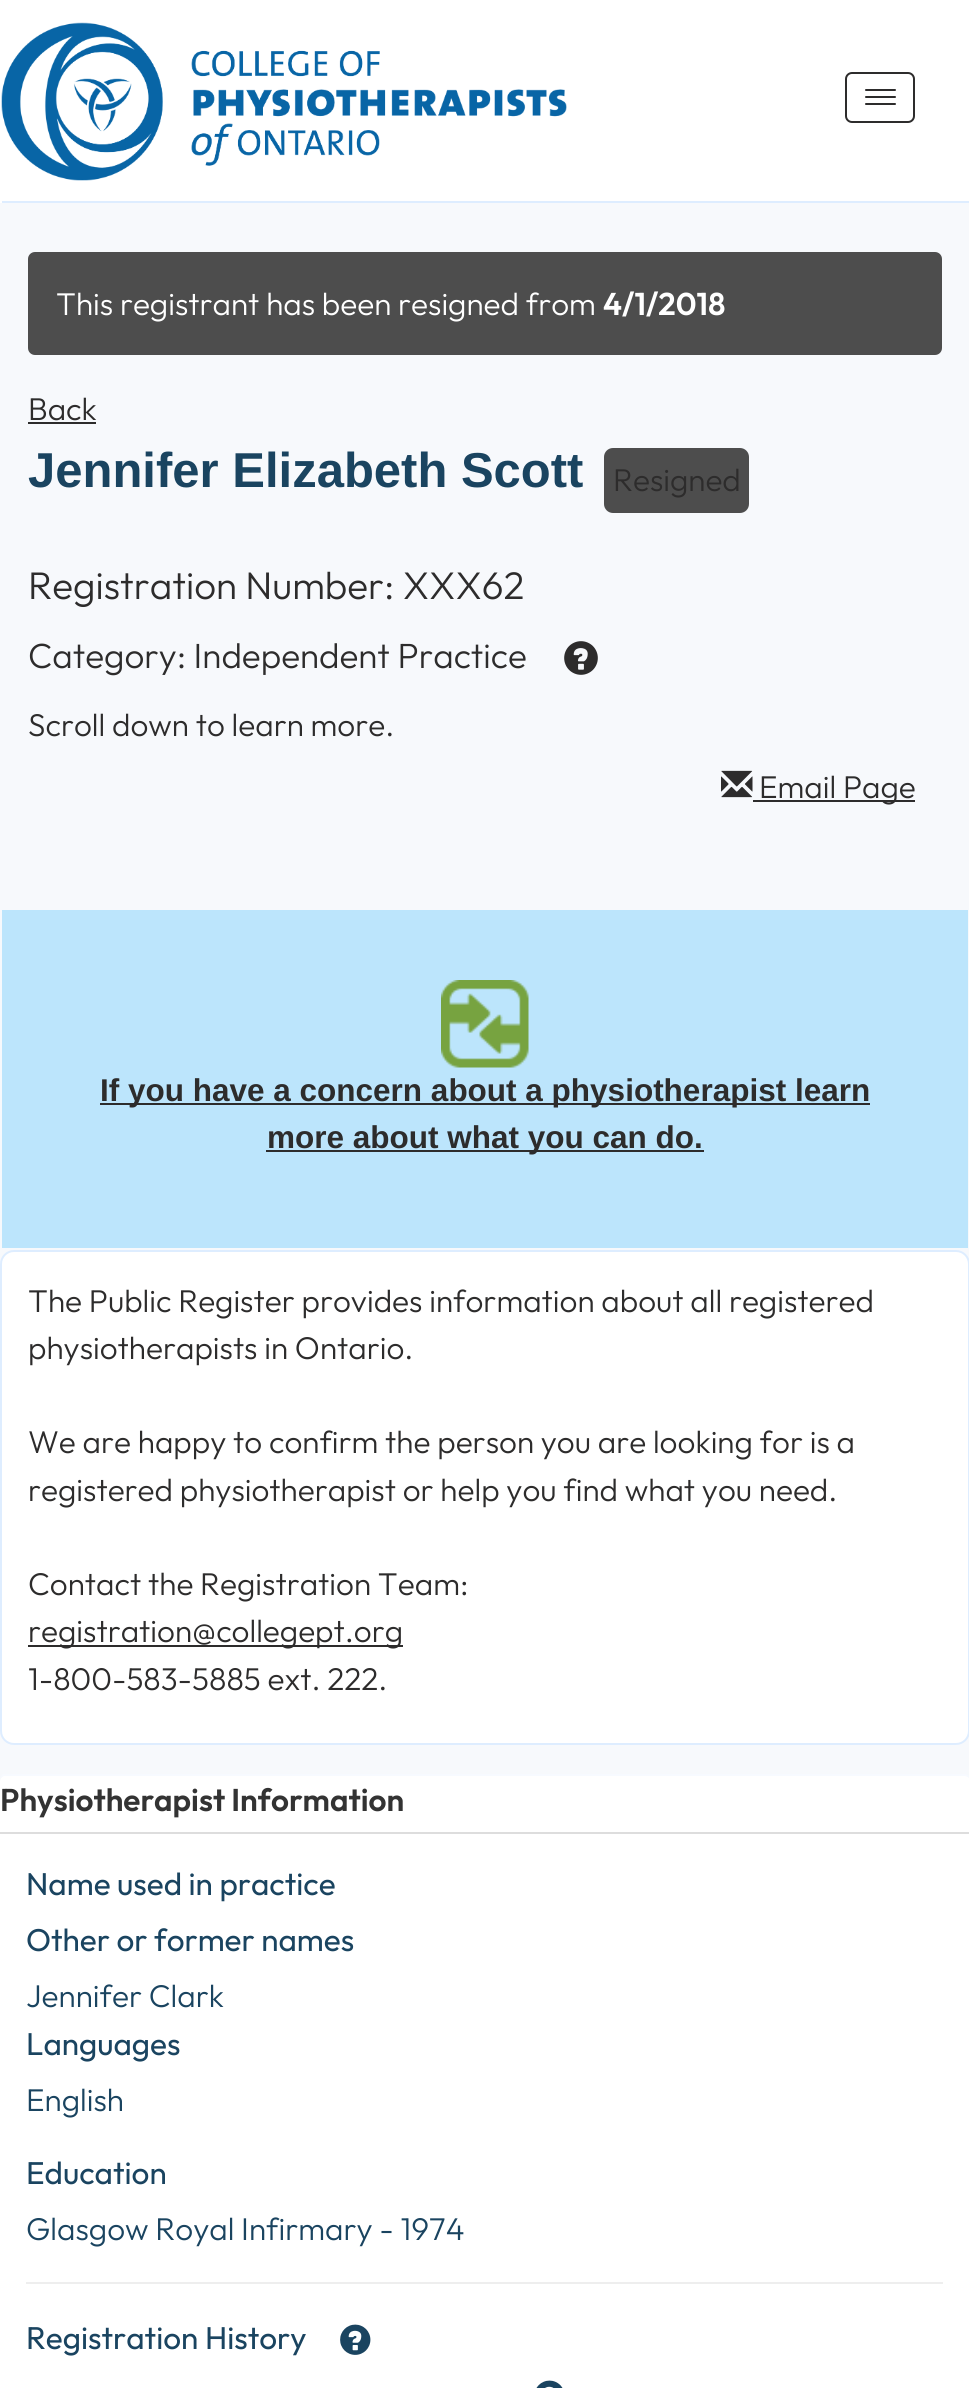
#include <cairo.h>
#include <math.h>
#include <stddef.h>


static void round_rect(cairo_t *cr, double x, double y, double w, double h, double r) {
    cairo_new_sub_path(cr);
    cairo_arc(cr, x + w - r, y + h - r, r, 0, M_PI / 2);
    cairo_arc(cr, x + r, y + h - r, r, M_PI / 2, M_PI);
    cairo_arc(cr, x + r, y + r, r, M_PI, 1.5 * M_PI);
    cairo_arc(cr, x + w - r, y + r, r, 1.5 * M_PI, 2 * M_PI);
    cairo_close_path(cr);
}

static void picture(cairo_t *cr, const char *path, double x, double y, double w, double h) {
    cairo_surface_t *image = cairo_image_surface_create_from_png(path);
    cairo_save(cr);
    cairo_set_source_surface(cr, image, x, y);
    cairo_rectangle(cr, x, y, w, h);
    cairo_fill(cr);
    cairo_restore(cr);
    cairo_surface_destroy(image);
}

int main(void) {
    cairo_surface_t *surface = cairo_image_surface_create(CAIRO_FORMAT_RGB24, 969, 2388);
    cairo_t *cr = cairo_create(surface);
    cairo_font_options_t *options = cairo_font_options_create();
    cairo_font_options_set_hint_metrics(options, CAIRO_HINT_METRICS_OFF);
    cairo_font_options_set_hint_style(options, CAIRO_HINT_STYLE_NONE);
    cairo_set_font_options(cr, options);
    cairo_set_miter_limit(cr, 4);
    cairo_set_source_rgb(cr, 0.965, 0.976, 0.988);
    cairo_paint(cr);
    cairo_set_source_rgb(cr, 1, 1, 1);
    cairo_rectangle(cr, 2, 0, 967, 201);
    cairo_fill(cr);
    cairo_set_source_rgb(cr, 0.871, 0.929, 1);
    cairo_rectangle(cr, 0, 201, 969, 2);
    cairo_fill(cr);
    cairo_set_source_rgb(cr, 1, 1, 1);
    cairo_rectangle(cr, 0, 0, 2, 203);
    cairo_fill(cr);
    picture(cr, "img1.png", 1, 22, 566, 159);
    round_rect(cr, 846, 73, 68, 49, 6);
    cairo_set_source_rgb(cr, 0.176, 0.173, 0.173);
    cairo_stroke(cr);
    round_rect(cr, 865, 89, 31, 2, 1);
    cairo_fill(cr);
    round_rect(cr, 865, 96, 31, 2, 1);
    cairo_fill(cr);
    round_rect(cr, 865, 103, 31, 2, 1);
    cairo_fill(cr);
    cairo_set_source_rgb(cr, 0.302, 0.302, 0.302);
    round_rect(cr, 28, 252, 914, 103, 7);
    cairo_fill(cr);
    cairo_select_font_face(cr, "Outfit Light", CAIRO_FONT_SLANT_NORMAL, CAIRO_FONT_WEIGHT_NORMAL);
    cairo_set_font_size(cr, 31.5);
    cairo_set_source_rgb(cr, 1, 1, 1);
    cairo_move_to(cr, 56, 315);
    cairo_show_text(cr, "This registrant has been resigned from");
    cairo_select_font_face(cr, "Outfit SemiBold", CAIRO_FONT_SLANT_NORMAL, CAIRO_FONT_WEIGHT_NORMAL);
    cairo_move_to(cr, 603, 315);
    cairo_show_text(cr, "4/1/2018");
    cairo_select_font_face(cr, "Outfit Light", CAIRO_FONT_SLANT_NORMAL, CAIRO_FONT_WEIGHT_NORMAL);
    cairo_set_source_rgb(cr, 0.176, 0.173, 0.173);
    cairo_move_to(cr, 28, 420);
    cairo_show_text(cr, "Back");
    cairo_rectangle(cr, 28, 422, 68, 2);
    cairo_fill(cr);
    cairo_select_font_face(cr, "Liberation Sans", CAIRO_FONT_SLANT_NORMAL, CAIRO_FONT_WEIGHT_BOLD);
    cairo_set_font_size(cr, 49);
    cairo_set_source_rgb(cr, 0.102, 0.267, 0.376);
    cairo_move_to(cr, 28, 487);
    cairo_show_text(cr, "Jennifer Elizabeth Scott");
    cairo_set_source_rgb(cr, 0.302, 0.302, 0.302);
    round_rect(cr, 604, 448, 145, 65, 9);
    cairo_fill(cr);
    cairo_select_font_face(cr, "Outfit Light", CAIRO_FONT_SLANT_NORMAL, CAIRO_FONT_WEIGHT_NORMAL);
    cairo_set_font_size(cr, 31.5);
    cairo_set_source_rgb(cr, 0.176, 0.173, 0.173);
    cairo_move_to(cr, 613, 491);
    cairo_show_text(cr, "Resigned");
    cairo_set_font_size(cr, 38.5);
    cairo_move_to(cr, 28, 599);
    cairo_show_text(cr, "Registration Number: XXX62");
    cairo_set_font_size(cr, 35);
    cairo_move_to(cr, 28, 668);
    cairo_show_text(cr, "Category: Independent Practice");
    picture(cr, "img2.png", 564, 641, 34, 34);
    cairo_set_font_size(cr, 31.5);
    cairo_move_to(cr, 28, 736);
    cairo_show_text(cr, "Scroll down to learn more.");
    picture(cr, "img3.png", 721, 770, 32, 28);
    cairo_rectangle(cr, 753, 800, 162, 2);
    cairo_fill(cr);
    cairo_move_to(cr, 759, 798);
    cairo_show_text(cr, "Email Page");
    cairo_set_source_rgb(cr, 0.737, 0.898, 0.988);
    cairo_rectangle(cr, 2, 910, 966, 338);
    cairo_fill(cr);
    picture(cr, "img4.png", 441, 980, 88, 88);
    cairo_set_source_rgb(cr, 0.176, 0.173, 0.173);
    cairo_rectangle(cr, 100, 1103, 770, 2);
    cairo_fill(cr);
    cairo_select_font_face(cr, "Liberation Sans", CAIRO_FONT_SLANT_NORMAL, CAIRO_FONT_WEIGHT_BOLD);
    cairo_move_to(cr, 100, 1101);
    cairo_show_text(cr, "If you have a concern about a physiotherapist learn");
    cairo_rectangle(cr, 266, 1150, 438, 2);
    cairo_fill(cr);
    cairo_move_to(cr, 267, 1148);
    cairo_show_text(cr, "more about what you can do.");
    cairo_set_source_rgb(cr, 1, 1, 1);
    round_rect(cr, 1, 1251, 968, 493, 13);
    cairo_fill_preserve(cr);
    cairo_set_source_rgb(cr, 0.871, 0.929, 1);
    cairo_stroke(cr);
    cairo_select_font_face(cr, "Outfit Light", CAIRO_FONT_SLANT_NORMAL, CAIRO_FONT_WEIGHT_NORMAL);
    cairo_set_source_rgb(cr, 0.176, 0.173, 0.173);
    cairo_move_to(cr, 28, 1312);
    cairo_show_text(cr, "The Public Register provides information about all registered");
    cairo_move_to(cr, 28, 1359);
    cairo_show_text(cr, "physiotherapists in Ontario.");
    cairo_move_to(cr, 28, 1453);
    cairo_show_text(cr, "We are happy to confirm the person you are looking for is a");
    cairo_move_to(cr, 28, 1501);
    cairo_show_text(cr, "registered physiotherapist or help you find what you need.");
    cairo_move_to(cr, 28, 1595);
    cairo_show_text(cr, "Contact the Registration Team:");
    cairo_rectangle(cr, 28, 1645, 375, 2);
    cairo_fill(cr);
    cairo_move_to(cr, 28, 1642);
    cairo_show_text(cr, "registration@collegept.org");
    cairo_move_to(cr, 28, 1690);
    cairo_show_text(cr, "1-800-583-5885 ext. 222.");
    cairo_set_source_rgb(cr, 1, 1, 1);
    round_rect(cr, 0, 1775, 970, 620, 7);
    cairo_fill(cr);
    cairo_set_source_rgb(cr, 0.965, 0.98, 1);
    cairo_new_path(cr);
    cairo_move_to(cr, 5, 1776);
    cairo_curve_to(cr, 2, 1776, 0, 1778, 0, 1780);
    cairo_curve_to(cr, 0, 1778, 1, 1775, 3, 1774);
    cairo_line_to(cr, 966, 1774);
    cairo_curve_to(cr, 968, 1775, 969, 1776, 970, 1778);
    cairo_line_to(cr, 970, 1779);
    cairo_curve_to(cr, 969, 1777, 966, 1776, 964, 1776);
    cairo_close_path(cr);
    cairo_fill(cr);
    cairo_set_source_rgb(cr, 0.867, 0.867, 0.867);
    cairo_rectangle(cr, 0, 1832, 969, 2);
    cairo_fill(cr);
    cairo_select_font_face(cr, "Outfit SemiBold", CAIRO_FONT_SLANT_NORMAL, CAIRO_FONT_WEIGHT_NORMAL);
    cairo_set_source_rgb(cr, 0.2, 0.2, 0.2);
    cairo_move_to(cr, 0, 1811);
    cairo_show_text(cr, "Physiotherapist Information");
    cairo_select_font_face(cr, "Outfit", CAIRO_FONT_SLANT_NORMAL, CAIRO_FONT_WEIGHT_NORMAL);
    cairo_set_source_rgb(cr, 0.102, 0.267, 0.376);
    cairo_move_to(cr, 26, 1895);
    cairo_show_text(cr, "Name used in practice");
    cairo_move_to(cr, 26, 1951);
    cairo_show_text(cr, "Other or former names");
    cairo_select_font_face(cr, "Outfit Light", CAIRO_FONT_SLANT_NORMAL, CAIRO_FONT_WEIGHT_NORMAL);
    cairo_move_to(cr, 26, 2007);
    cairo_show_text(cr, "Jennifer Clark");
    cairo_select_font_face(cr, "Outfit", CAIRO_FONT_SLANT_NORMAL, CAIRO_FONT_WEIGHT_NORMAL);
    cairo_move_to(cr, 26, 2055);
    cairo_show_text(cr, "Languages");
    cairo_select_font_face(cr, "Outfit Light", CAIRO_FONT_SLANT_NORMAL, CAIRO_FONT_WEIGHT_NORMAL);
    cairo_move_to(cr, 26, 2111);
    cairo_show_text(cr, "English");
    cairo_select_font_face(cr, "Outfit", CAIRO_FONT_SLANT_NORMAL, CAIRO_FONT_WEIGHT_NORMAL);
    cairo_move_to(cr, 26, 2184);
    cairo_show_text(cr, "Education");
    cairo_select_font_face(cr, "Outfit Light", CAIRO_FONT_SLANT_NORMAL, CAIRO_FONT_WEIGHT_NORMAL);
    cairo_move_to(cr, 26, 2240);
    cairo_show_text(cr, "Glasgow Royal Infirmary - 1974");
    cairo_set_source_rgb(cr, 0.933, 0.933, 0.933);
    cairo_rectangle(cr, 26, 2282, 917, 2);
    cairo_fill(cr);
    cairo_select_font_face(cr, "Outfit", CAIRO_FONT_SLANT_NORMAL, CAIRO_FONT_WEIGHT_NORMAL);
    cairo_set_source_rgb(cr, 0.102, 0.267, 0.376);
    cairo_move_to(cr, 26, 2349);
    cairo_show_text(cr, "Registration History");
    picture(cr, "img5.png", 340, 2324, 31, 31);
    picture(cr, "img6.png", 536, 2380, 27, 8);
    cairo_surface_write_to_png(surface, "page.png");
    cairo_font_options_destroy(options);
    cairo_destroy(cr);
    cairo_surface_destroy(surface);
    return 0;
}
